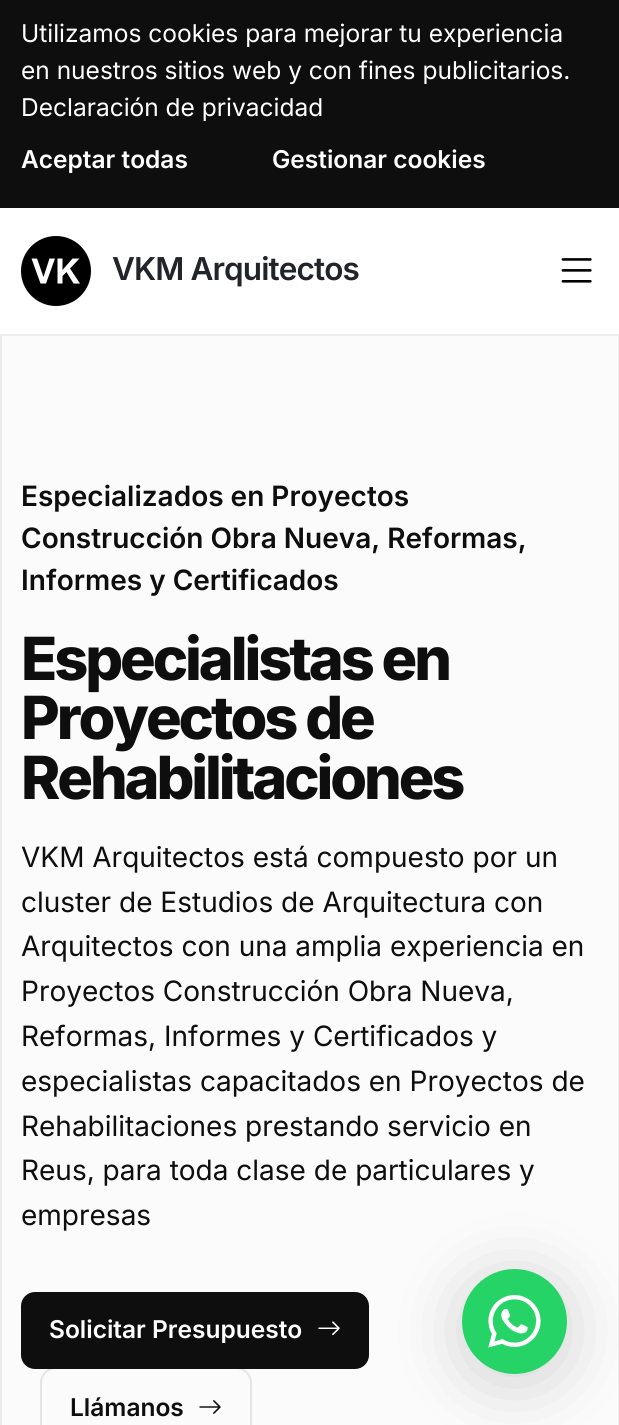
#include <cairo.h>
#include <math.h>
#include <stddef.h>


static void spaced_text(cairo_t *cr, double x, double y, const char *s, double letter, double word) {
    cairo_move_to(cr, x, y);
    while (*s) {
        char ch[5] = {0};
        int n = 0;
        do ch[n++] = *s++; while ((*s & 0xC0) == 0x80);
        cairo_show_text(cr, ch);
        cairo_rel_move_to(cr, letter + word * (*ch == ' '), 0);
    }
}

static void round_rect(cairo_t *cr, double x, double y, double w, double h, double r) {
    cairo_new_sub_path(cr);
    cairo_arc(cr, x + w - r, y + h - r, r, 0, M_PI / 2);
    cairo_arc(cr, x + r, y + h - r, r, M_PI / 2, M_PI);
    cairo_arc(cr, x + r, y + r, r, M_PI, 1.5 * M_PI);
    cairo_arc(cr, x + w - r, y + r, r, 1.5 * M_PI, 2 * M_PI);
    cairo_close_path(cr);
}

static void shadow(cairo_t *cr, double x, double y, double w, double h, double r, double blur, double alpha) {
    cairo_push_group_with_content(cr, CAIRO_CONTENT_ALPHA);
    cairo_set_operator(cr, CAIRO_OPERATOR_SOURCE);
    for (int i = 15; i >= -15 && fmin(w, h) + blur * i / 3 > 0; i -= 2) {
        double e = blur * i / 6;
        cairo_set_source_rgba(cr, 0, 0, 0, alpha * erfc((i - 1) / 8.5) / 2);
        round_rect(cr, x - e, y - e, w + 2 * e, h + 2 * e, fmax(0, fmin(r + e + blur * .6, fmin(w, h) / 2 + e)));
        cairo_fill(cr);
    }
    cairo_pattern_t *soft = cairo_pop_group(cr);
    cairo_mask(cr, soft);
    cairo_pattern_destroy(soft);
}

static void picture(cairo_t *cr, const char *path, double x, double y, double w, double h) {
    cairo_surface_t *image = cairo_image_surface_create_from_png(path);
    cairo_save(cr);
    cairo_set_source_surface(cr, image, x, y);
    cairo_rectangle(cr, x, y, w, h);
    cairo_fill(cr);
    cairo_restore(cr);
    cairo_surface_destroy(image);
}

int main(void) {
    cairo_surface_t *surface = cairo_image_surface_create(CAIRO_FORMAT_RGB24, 619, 1425);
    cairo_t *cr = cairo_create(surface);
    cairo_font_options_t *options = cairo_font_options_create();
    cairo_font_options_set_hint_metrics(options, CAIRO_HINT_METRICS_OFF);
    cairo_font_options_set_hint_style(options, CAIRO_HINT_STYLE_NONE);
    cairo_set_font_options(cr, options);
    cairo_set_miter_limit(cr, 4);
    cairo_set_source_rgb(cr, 1, 1, 1);
    cairo_paint(cr);
    cairo_set_source_rgb(cr, 0.055, 0.055, 0.055);
    cairo_rectangle(cr, 0, 0, 619, 208);
    cairo_fill(cr);
    cairo_select_font_face(cr, "Inter", CAIRO_FONT_SLANT_NORMAL, CAIRO_FONT_WEIGHT_NORMAL);
    cairo_set_font_size(cr, 24.5);
    cairo_set_source_rgb(cr, 1, 1, 1);
    cairo_move_to(cr, 21, 42);
    cairo_show_text(cr, "Utilizamos cookies para mejorar tu experiencia");
    cairo_move_to(cr, 21, 79);
    cairo_show_text(cr, "en nuestros sitios web y con fines publicitarios.");
    cairo_move_to(cr, 21, 116);
    cairo_show_text(cr, "Declaración de privacidad");
    cairo_select_font_face(cr, "Inter SemiBold", CAIRO_FONT_SLANT_NORMAL, CAIRO_FONT_WEIGHT_NORMAL);
    cairo_move_to(cr, 21, 168);
    cairo_show_text(cr, "Aceptar todas");
    cairo_move_to(cr, 272, 168);
    cairo_show_text(cr, "Gestionar cookies");
    cairo_set_source_rgb(cr, 0, 0, 0);
    cairo_new_path(cr);
    cairo_arc(cr, 56, 271, 35, 0, 2 * M_PI);
    cairo_fill(cr);
    cairo_set_source_rgb(cr, 1, 1, 1);
    cairo_new_path(cr);
    cairo_move_to(cr, 40.5, 283.5);
    cairo_line_to(cr, 31.5, 258.5);
    cairo_line_to(cr, 37, 258.5);
    cairo_line_to(cr, 43.5, 277);
    cairo_line_to(cr, 49.5, 258.5);
    cairo_line_to(cr, 55, 258.5);
    cairo_line_to(cr, 46, 283.5);
    cairo_close_path(cr);
    cairo_move_to(cr, 57.5, 283.5);
    cairo_line_to(cr, 57.5, 258.5);
    cairo_line_to(cr, 62.5, 258.5);
    cairo_line_to(cr, 62.5, 270);
    cairo_line_to(cr, 72.5, 258.5);
    cairo_line_to(cr, 79.5, 258.5);
    cairo_line_to(cr, 70, 268.5);
    cairo_line_to(cr, 80, 283.5);
    cairo_line_to(cr, 73.5, 283.5);
    cairo_line_to(cr, 66.5, 272);
    cairo_line_to(cr, 62.5, 276);
    cairo_line_to(cr, 62.5, 283.5);
    cairo_close_path(cr);
    cairo_fill(cr);
    cairo_set_font_size(cr, 31.5);
    cairo_set_source_rgb(cr, 0.129, 0.145, 0.161);
    spaced_text(cr, 112, 280, "VKM Arquitectos", -0.9, 0);
    picture(cr, "img1.png", 561, 258, 31, 25);
    cairo_set_source_rgb(cr, 0.984, 0.984, 0.984);
    cairo_rectangle(cr, 1, 335, 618, 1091);
    cairo_fill_preserve(cr);
    cairo_set_source_rgb(cr, 0.925, 0.925, 0.925);
    cairo_stroke(cr);
    cairo_set_font_size(cr, 28);
    cairo_set_source_rgb(cr, 0.055, 0.055, 0.055);
    cairo_move_to(cr, 21, 506);
    cairo_show_text(cr, "Especializados en Proyectos");
    cairo_move_to(cr, 21, 548);
    cairo_show_text(cr, "Construcción Obra Nueva, Reformas,");
    cairo_move_to(cr, 21, 590);
    cairo_show_text(cr, "Informes y Certificados");
    cairo_select_font_face(cr, "Inter ExtraBold", CAIRO_FONT_SLANT_NORMAL, CAIRO_FONT_WEIGHT_NORMAL);
    cairo_set_font_size(cr, 59.5);
    spaced_text(cr, 21, 680, "Especialistas en", -3.1, 0);
    spaced_text(cr, 21, 739, "Proyectos de", -3.1, 0);
    spaced_text(cr, 21, 799, "Rehabilitaciones", -3.1, 0);
    cairo_select_font_face(cr, "Inter", CAIRO_FONT_SLANT_NORMAL, CAIRO_FONT_WEIGHT_NORMAL);
    cairo_set_font_size(cr, 28);
    cairo_move_to(cr, 21, 867);
    cairo_show_text(cr, "VKM Arquitectos está compuesto por un");
    cairo_move_to(cr, 21, 912);
    cairo_show_text(cr, "cluster de Estudios de Arquitectura con");
    cairo_move_to(cr, 21, 956);
    cairo_show_text(cr, "Arquitectos con una amplia experiencia en");
    cairo_move_to(cr, 21, 1001);
    cairo_show_text(cr, "Proyectos Construcción Obra Nueva,");
    cairo_move_to(cr, 21, 1046);
    cairo_show_text(cr, "Reformas, Informes y Certificados y");
    cairo_move_to(cr, 21, 1091);
    cairo_show_text(cr, "especialistas capacitados en Proyectos de");
    cairo_move_to(cr, 21, 1136);
    cairo_show_text(cr, "Rehabilitaciones prestando servicio en");
    cairo_move_to(cr, 21, 1180);
    cairo_show_text(cr, "Reus, para toda clase de particulares y");
    cairo_move_to(cr, 21, 1225);
    cairo_show_text(cr, "empresas");
    round_rect(cr, 21, 1292, 348, 77, 14);
    cairo_fill(cr);
    cairo_select_font_face(cr, "Inter SemiBold", CAIRO_FONT_SLANT_NORMAL, CAIRO_FONT_WEIGHT_NORMAL);
    cairo_set_font_size(cr, 24.5);
    cairo_set_source_rgb(cr, 1, 1, 1);
    cairo_move_to(cr, 49, 1338);
    cairo_show_text(cr, "Solicitar Presupuesto");
    picture(cr, "img2.png", 318, 1321, 22, 15);
    round_rect(cr, 41, 1368, 210, 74, 15);
    cairo_set_source_rgba(cr, 0.059, 0.09, 0.165, 0.1);
    cairo_stroke(cr);
    cairo_set_source_rgb(cr, 0.055, 0.055, 0.055);
    cairo_move_to(cr, 70, 1416);
    cairo_show_text(cr, "Llámanos");
    picture(cr, "img3.png", 199, 1400, 22, 14);
    cairo_set_source_rgb(cr, 0, 0, 0);
    shadow(cr, 462, 1278, 105, 105, 52.5, 35, 0.16);
    cairo_set_source_rgb(cr, 0.145, 0.827, 0.4);
    cairo_arc(cr, 514.5, 1321.5, 52.5, 0, 2 * M_PI);
    cairo_fill(cr);
    picture(cr, "img4.png", 488, 1295, 53, 53);
    cairo_surface_write_to_png(surface, "page.png");
    cairo_font_options_destroy(options);
    cairo_destroy(cr);
    cairo_surface_destroy(surface);
    return 0;
}
